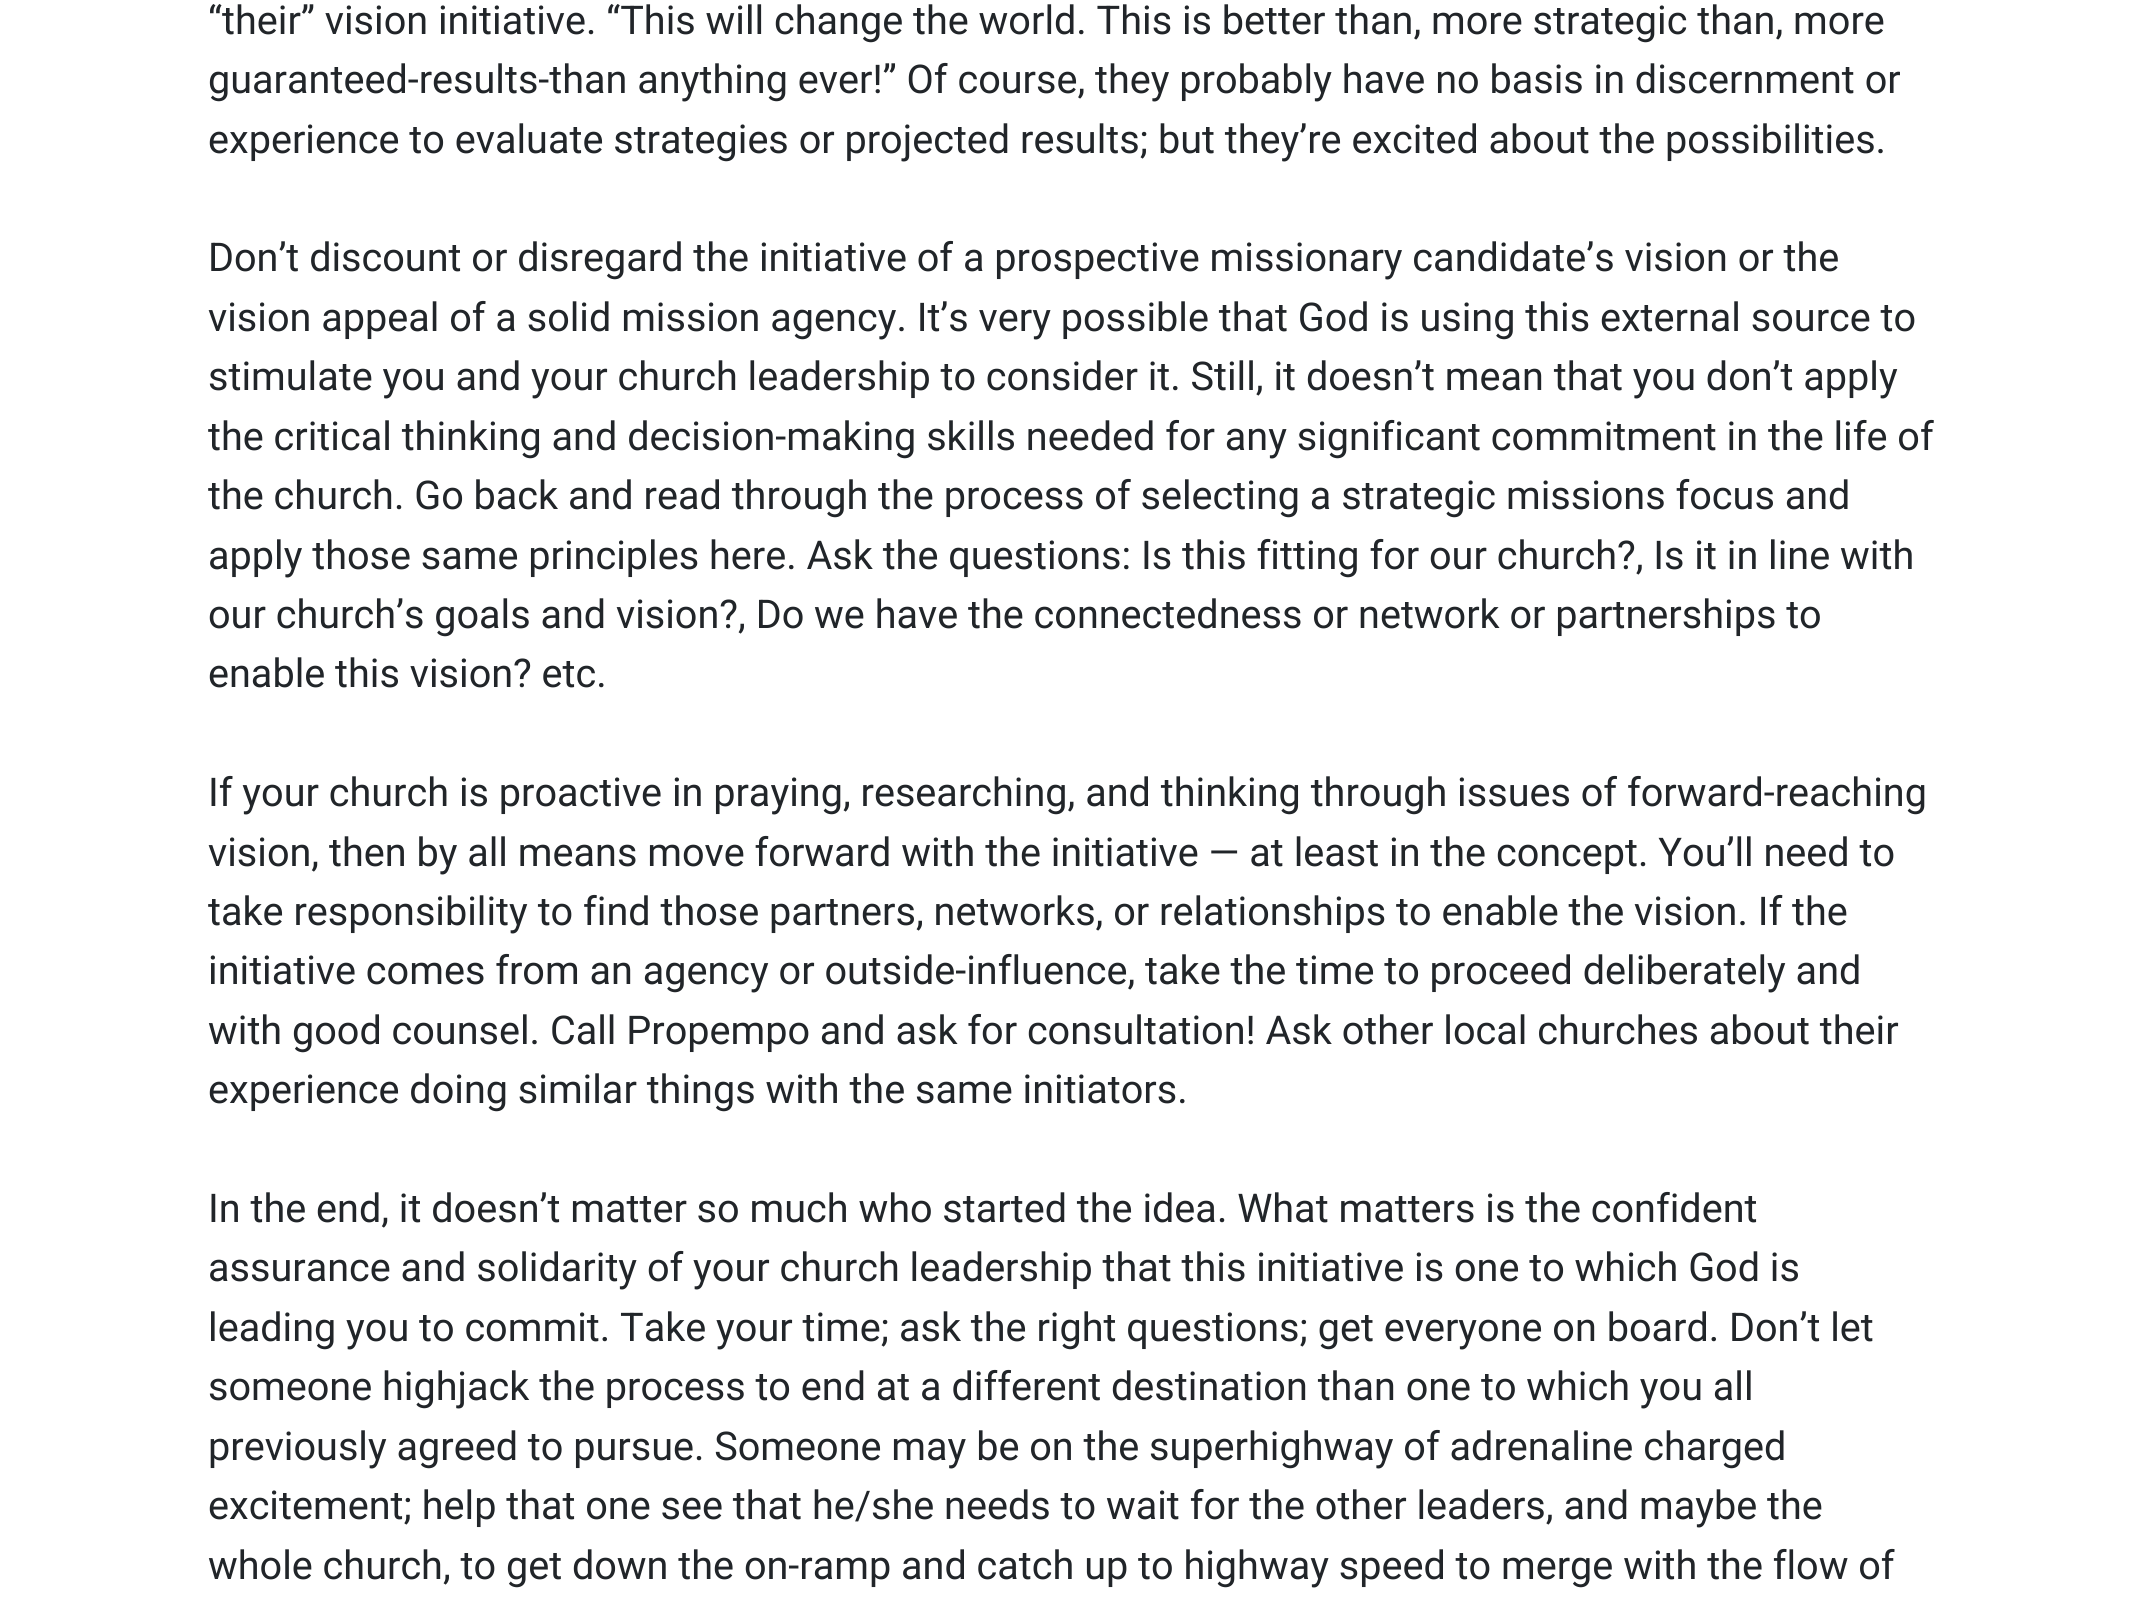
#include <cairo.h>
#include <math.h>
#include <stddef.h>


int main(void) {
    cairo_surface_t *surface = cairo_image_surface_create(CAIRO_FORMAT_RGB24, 2138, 1609);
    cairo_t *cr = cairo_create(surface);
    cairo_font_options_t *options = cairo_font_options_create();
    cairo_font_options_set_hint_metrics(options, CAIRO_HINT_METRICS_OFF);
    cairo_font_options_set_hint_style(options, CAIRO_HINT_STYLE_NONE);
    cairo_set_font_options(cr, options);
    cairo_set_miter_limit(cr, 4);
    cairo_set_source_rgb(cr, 1, 1, 1);
    cairo_paint(cr);
    cairo_select_font_face(cr, "Roboto", CAIRO_FONT_SLANT_NORMAL, CAIRO_FONT_WEIGHT_NORMAL);
    cairo_set_font_size(cr, 39.6);
    cairo_set_source_rgb(cr, 0.129, 0.145, 0.161);
    cairo_move_to(cr, 208, 34);
    cairo_show_text(cr, "“their” vision initiative. “This will change the world. This is better than, more strategic than, more");
    cairo_move_to(cr, 208, 93);
    cairo_show_text(cr, "guaranteed-results-than anything ever!” Of course, they probably have no basis in discernment or");
    cairo_move_to(cr, 208, 153);
    cairo_show_text(cr, "experience to evaluate strategies or projected results; but they’re excited about the possibilities.");
    cairo_move_to(cr, 208, 271);
    cairo_show_text(cr, "Don’t discount or disregard the initiative of a prospective missionary candidate’s vision or the");
    cairo_move_to(cr, 208, 331);
    cairo_show_text(cr, "vision appeal of a solid mission agency. It’s very possible that God is using this external source to");
    cairo_move_to(cr, 208, 390);
    cairo_show_text(cr, "stimulate you and your church leadership to consider it. Still, it doesn’t mean that you don’t apply");
    cairo_move_to(cr, 208, 450);
    cairo_show_text(cr, "the critical thinking and decision-making skills needed for any significant commitment in the life of");
    cairo_move_to(cr, 208, 509);
    cairo_show_text(cr, "the church. Go back and read through the process of selecting a strategic missions focus and");
    cairo_move_to(cr, 208, 569);
    cairo_show_text(cr, "apply those same principles here. Ask the questions: Is this fitting for our church?, Is it in line with");
    cairo_move_to(cr, 208, 628);
    cairo_show_text(cr, "our church’s goals and vision?, Do we have the connectedness or network or partnerships to");
    cairo_move_to(cr, 208, 687);
    cairo_show_text(cr, "enable this vision? etc.");
    cairo_move_to(cr, 208, 806);
    cairo_show_text(cr, "If your church is proactive in praying, researching, and thinking through issues of forward-reaching");
    cairo_move_to(cr, 208, 866);
    cairo_show_text(cr, "vision, then by all means move forward with the initiative — at least in the concept. You’ll need to");
    cairo_move_to(cr, 208, 925);
    cairo_show_text(cr, "take responsibility to find those partners, networks, or relationships to enable the vision. If the");
    cairo_move_to(cr, 208, 984);
    cairo_show_text(cr, "initiative comes from an agency or outside-influence, take the time to proceed deliberately and");
    cairo_move_to(cr, 208, 1044);
    cairo_show_text(cr, "with good counsel. Call Propempo and ask for consultation! Ask other local churches about their");
    cairo_move_to(cr, 208, 1103);
    cairo_show_text(cr, "experience doing similar things with the same initiators.");
    cairo_move_to(cr, 208, 1222);
    cairo_show_text(cr, "In the end, it doesn’t matter so much who started the idea. What matters is the confident");
    cairo_move_to(cr, 208, 1281);
    cairo_show_text(cr, "assurance and solidarity of your church leadership that this initiative is one to which God is");
    cairo_move_to(cr, 208, 1341);
    cairo_show_text(cr, "leading you to commit. Take your time; ask the right questions; get everyone on board. Don’t let");
    cairo_move_to(cr, 208, 1400);
    cairo_show_text(cr, "someone highjack the process to end at a different destination than one to which you all");
    cairo_move_to(cr, 208, 1460);
    cairo_show_text(cr, "previously agreed to pursue. Someone may be on the superhighway of adrenaline charged");
    cairo_move_to(cr, 208, 1519);
    cairo_show_text(cr, "excitement; help that one see that he/she needs to wait for the other leaders, and maybe the");
    cairo_move_to(cr, 208, 1579);
    cairo_show_text(cr, "whole church, to get down the on-ramp and catch up to highway speed to merge with the flow of");
    cairo_surface_write_to_png(surface, "page.png");
    cairo_font_options_destroy(options);
    cairo_destroy(cr);
    cairo_surface_destroy(surface);
    return 0;
}
